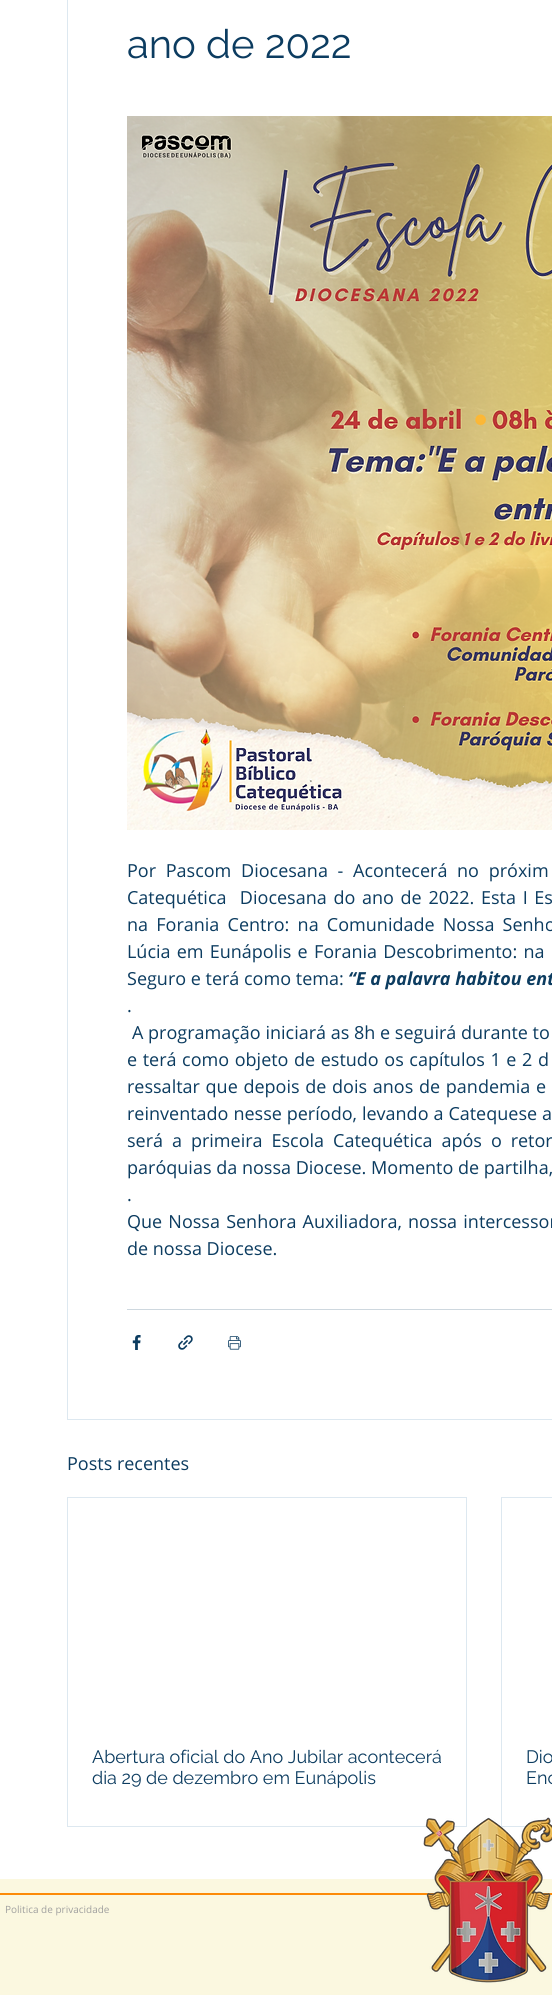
#include <cairo.h>
#include <math.h>
#include <stddef.h>


static void spaced_text(cairo_t *cr, double x, double y, const char *s, double letter, double word) {
    cairo_move_to(cr, x, y);
    while (*s) {
        char ch[5] = {0};
        int n = 0;
        do ch[n++] = *s++; while ((*s & 0xC0) == 0x80);
        cairo_show_text(cr, ch);
        cairo_rel_move_to(cr, letter + word * (*ch == ' '), 0);
    }
}

static void picture(cairo_t *cr, const char *path, double x, double y, double w, double h) {
    cairo_surface_t *image = cairo_image_surface_create_from_png(path);
    cairo_save(cr);
    cairo_set_source_surface(cr, image, x, y);
    cairo_rectangle(cr, x, y, w, h);
    cairo_fill(cr);
    cairo_restore(cr);
    cairo_surface_destroy(image);
}

int main(void) {
    cairo_surface_t *surface = cairo_image_surface_create(CAIRO_FORMAT_RGB24, 552, 1995);
    cairo_t *cr = cairo_create(surface);
    cairo_font_options_t *options = cairo_font_options_create();
    cairo_font_options_set_hint_metrics(options, CAIRO_HINT_METRICS_OFF);
    cairo_font_options_set_hint_style(options, CAIRO_HINT_STYLE_NONE);
    cairo_set_font_options(cr, options);
    cairo_set_miter_limit(cr, 4);
    cairo_set_source_rgb(cr, 1, 1, 1);
    cairo_paint(cr);
    cairo_rectangle(cr, 67.5, -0.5, 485, 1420);
    cairo_set_source_rgb(cr, 0.867, 0.91, 0.941);
    cairo_set_line_width(cr, 1);
    cairo_stroke(cr);
    cairo_select_font_face(cr, "Raleway", CAIRO_FONT_SLANT_NORMAL, CAIRO_FONT_WEIGHT_NORMAL);
    cairo_set_font_size(cr, 40);
    cairo_set_source_rgb(cr, 0.047, 0.235, 0.376);
    cairo_move_to(cr, 127, 58);
    cairo_show_text(cr, "ano de 2022");
    picture(cr, "img1.png", 127, 116, 425, 714);
    cairo_select_font_face(cr, "Open Sans", CAIRO_FONT_SLANT_NORMAL, CAIRO_FONT_WEIGHT_NORMAL);
    cairo_set_font_size(cr, 18);
    spaced_text(cr, 127, 877, "Por Pascom Diocesana - Acontecerá no próxim", 0, 5);
    spaced_text(cr, 127, 904, "Catequética  Diocesana do ano de 2022. Esta I Es", 0, 2);
    spaced_text(cr, 127, 931, "na Forania Centro: na Comunidade Nossa Senho", 0, 3.5);
    spaced_text(cr, 127, 958, "Lúcia em Eunápolis e Forania Descobrimento: na", 0, 1.5);
    cairo_move_to(cr, 127, 985);
    cairo_show_text(cr, "Seguro e terá como tema:");
    cairo_select_font_face(cr, "Open Sans", CAIRO_FONT_SLANT_ITALIC, CAIRO_FONT_WEIGHT_BOLD);
    cairo_move_to(cr, 348, 985);
    cairo_show_text(cr, "“E a palavra habitou ent");
    cairo_select_font_face(cr, "Open Sans", CAIRO_FONT_SLANT_NORMAL, CAIRO_FONT_WEIGHT_NORMAL);
    cairo_move_to(cr, 127, 1012);
    cairo_show_text(cr, ".");
    cairo_move_to(cr, 132, 1039);
    cairo_show_text(cr, "A programação iniciará as 8h e seguirá durante to");
    spaced_text(cr, 127, 1066, "e terá como objeto de estudo os capítulos 1 e 2 d", 0, 0.9);
    spaced_text(cr, 127, 1093, "ressaltar que depois de dois anos de pandemia e", 0, 1);
    spaced_text(cr, 127, 1120, "reinventado nesse período, levando a Catequese a", 0, 0.25);
    spaced_text(cr, 127, 1147, "será a primeira Escola Catequética após o retor", 0, 4.25);
    cairo_move_to(cr, 127, 1174);
    cairo_show_text(cr, "paróquias da nossa Diocese. Momento de partilha,");
    cairo_move_to(cr, 127, 1201);
    cairo_show_text(cr, ".");
    spaced_text(cr, 127, 1228, "Que Nossa Senhora Auxiliadora, nossa intercessor", 0, 1.5);
    cairo_move_to(cr, 127, 1255);
    cairo_show_text(cr, "de nossa Diocese.");
    cairo_set_source_rgb(cr, 0.808, 0.847, 0.875);
    cairo_rectangle(cr, 127, 1309, 425, 1);
    cairo_fill(cr);
    picture(cr, "img2.png", 132, 1335, 9, 15);
    picture(cr, "img3.png", 178, 1335, 15, 15);
    picture(cr, "img4.png", 228, 1336, 13, 14);
    cairo_set_source_rgb(cr, 0.047, 0.235, 0.376);
    cairo_move_to(cr, 67, 1470);
    cairo_show_text(cr, "Posts recentes");
    cairo_rectangle(cr, 67.5, 1497.5, 399, 329);
    cairo_set_source_rgb(cr, 0.867, 0.91, 0.941);
    cairo_stroke(cr);
    cairo_select_font_face(cr, "Raleway", CAIRO_FONT_SLANT_NORMAL, CAIRO_FONT_WEIGHT_NORMAL);
    cairo_set_source_rgb(cr, 0.047, 0.235, 0.376);
    cairo_move_to(cr, 92, 1763);
    cairo_show_text(cr, "Abertura oficial do Ano Jubilar acontecerá");
    cairo_move_to(cr, 92, 1784);
    cairo_show_text(cr, "dia 29 de dezembro em Eunápolis");
    cairo_rectangle(cr, 501.5, 1497.5, 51, 329);
    cairo_set_source_rgb(cr, 0.867, 0.91, 0.941);
    cairo_stroke(cr);
    cairo_set_source_rgb(cr, 0.047, 0.235, 0.376);
    cairo_move_to(cr, 526, 1763);
    cairo_show_text(cr, "Dio");
    cairo_move_to(cr, 526, 1784);
    cairo_show_text(cr, "Enc");
    cairo_set_source_rgb(cr, 0.984, 0.969, 0.878);
    cairo_rectangle(cr, 0, 1879, 552, 116);
    cairo_fill(cr);
    cairo_set_source_rgb(cr, 0.988, 0.545, 0.039);
    cairo_rectangle(cr, 0, 1893, 552, 2);
    cairo_fill(cr);
    cairo_select_font_face(cr, "Open Sans", CAIRO_FONT_SLANT_NORMAL, CAIRO_FONT_WEIGHT_NORMAL);
    cairo_set_font_size(cr, 10);
    cairo_set_source_rgb(cr, 0.627, 0.627, 0.624);
    cairo_move_to(cr, 5, 1913);
    cairo_show_text(cr, "Politica de privacidade");
    picture(cr, "img5.png", 423, 1817, 129, 166);
    cairo_surface_write_to_png(surface, "page.png");
    cairo_font_options_destroy(options);
    cairo_destroy(cr);
    cairo_surface_destroy(surface);
    return 0;
}
